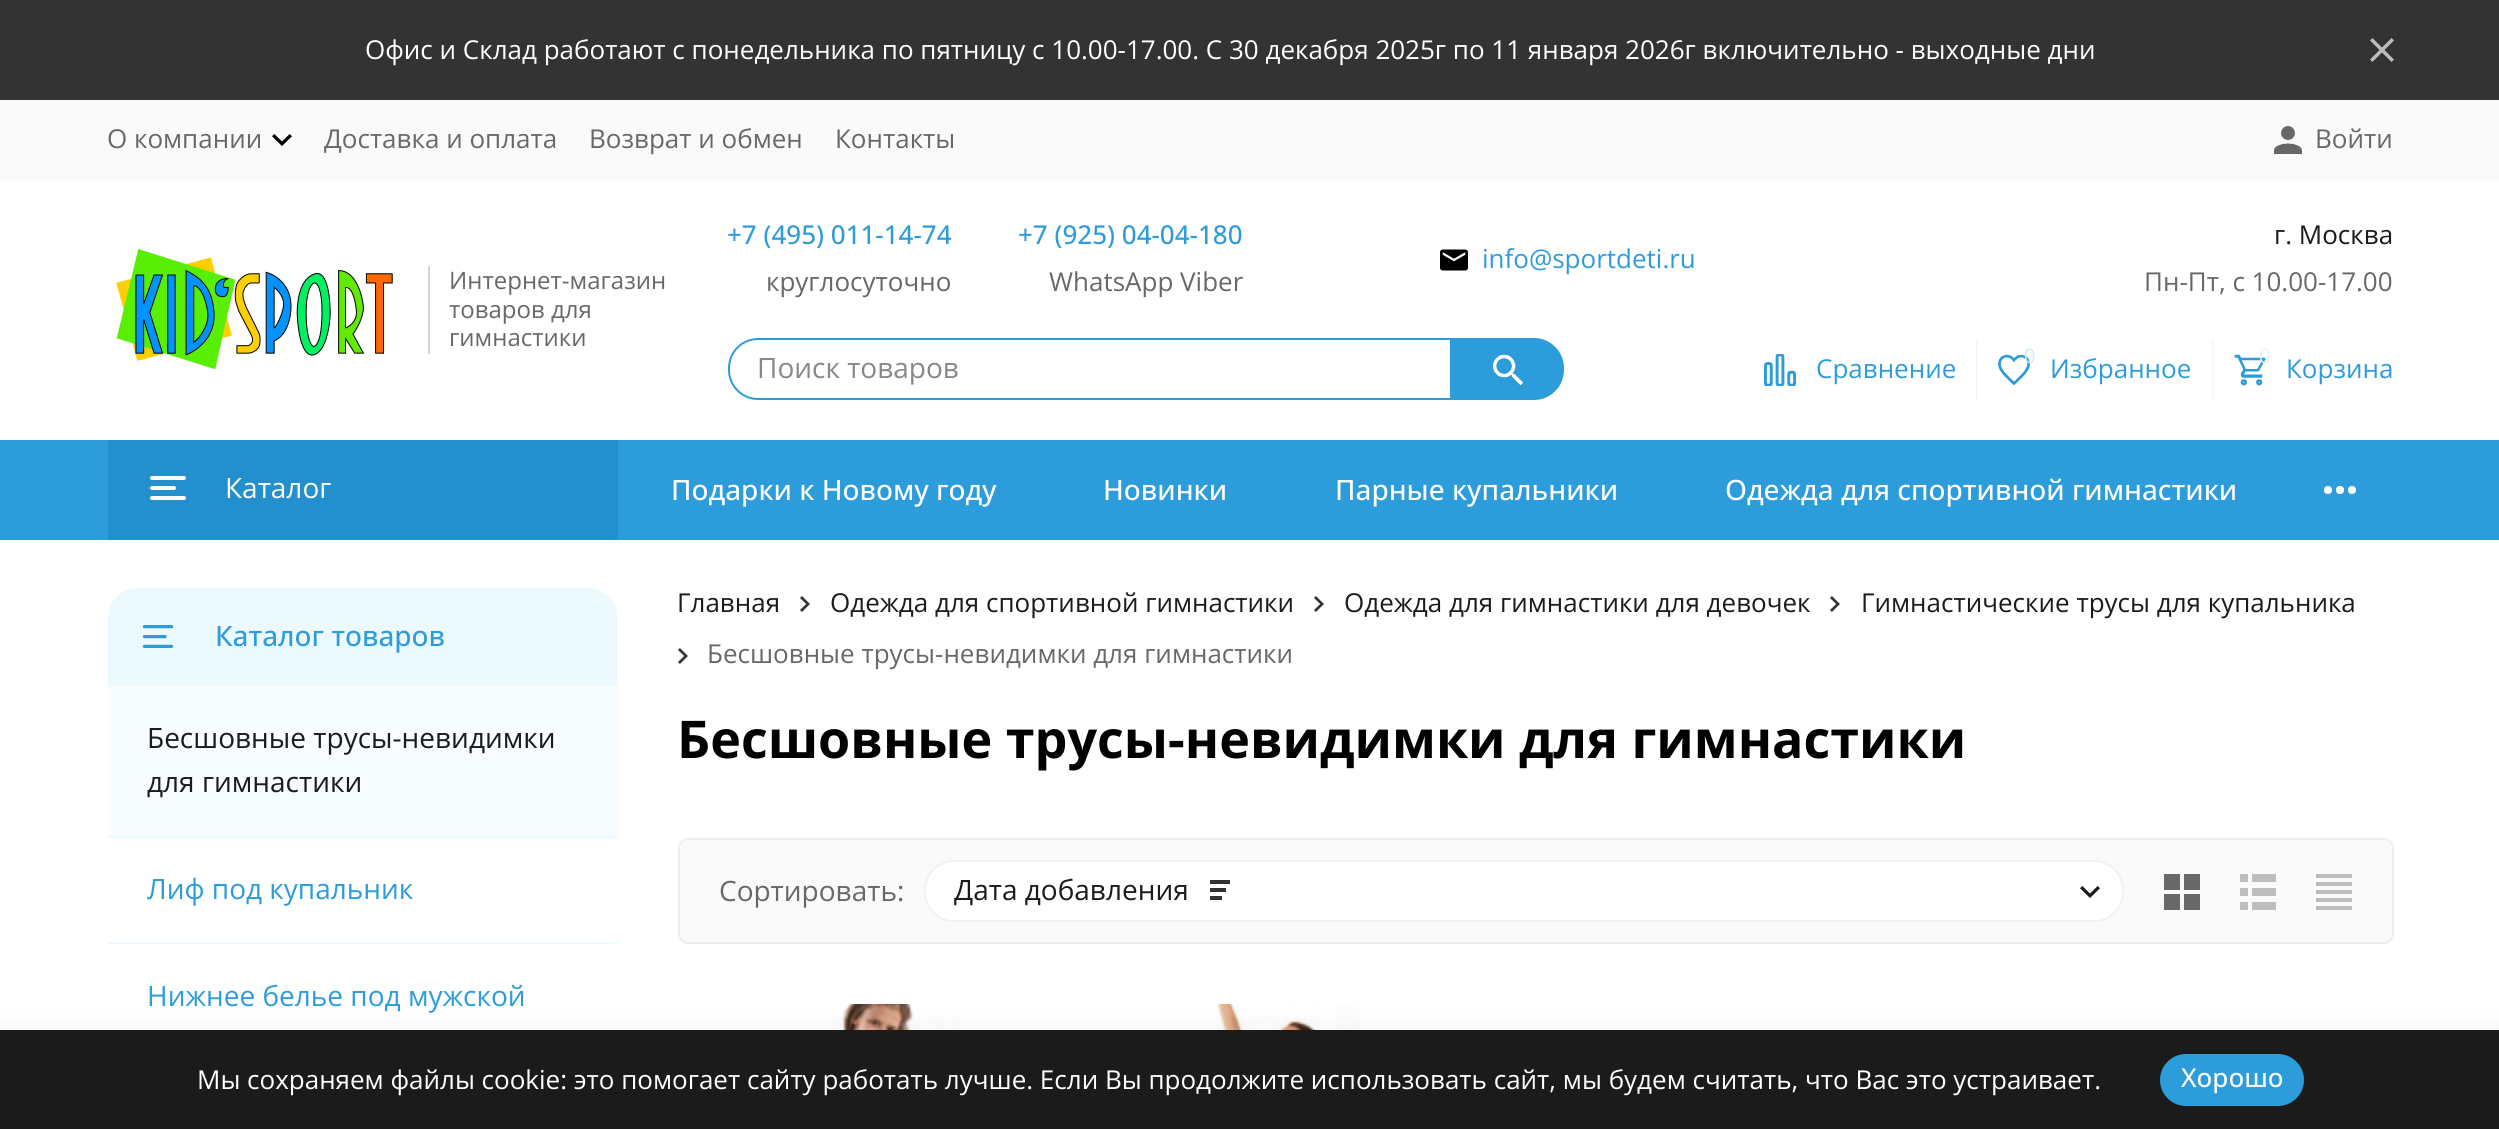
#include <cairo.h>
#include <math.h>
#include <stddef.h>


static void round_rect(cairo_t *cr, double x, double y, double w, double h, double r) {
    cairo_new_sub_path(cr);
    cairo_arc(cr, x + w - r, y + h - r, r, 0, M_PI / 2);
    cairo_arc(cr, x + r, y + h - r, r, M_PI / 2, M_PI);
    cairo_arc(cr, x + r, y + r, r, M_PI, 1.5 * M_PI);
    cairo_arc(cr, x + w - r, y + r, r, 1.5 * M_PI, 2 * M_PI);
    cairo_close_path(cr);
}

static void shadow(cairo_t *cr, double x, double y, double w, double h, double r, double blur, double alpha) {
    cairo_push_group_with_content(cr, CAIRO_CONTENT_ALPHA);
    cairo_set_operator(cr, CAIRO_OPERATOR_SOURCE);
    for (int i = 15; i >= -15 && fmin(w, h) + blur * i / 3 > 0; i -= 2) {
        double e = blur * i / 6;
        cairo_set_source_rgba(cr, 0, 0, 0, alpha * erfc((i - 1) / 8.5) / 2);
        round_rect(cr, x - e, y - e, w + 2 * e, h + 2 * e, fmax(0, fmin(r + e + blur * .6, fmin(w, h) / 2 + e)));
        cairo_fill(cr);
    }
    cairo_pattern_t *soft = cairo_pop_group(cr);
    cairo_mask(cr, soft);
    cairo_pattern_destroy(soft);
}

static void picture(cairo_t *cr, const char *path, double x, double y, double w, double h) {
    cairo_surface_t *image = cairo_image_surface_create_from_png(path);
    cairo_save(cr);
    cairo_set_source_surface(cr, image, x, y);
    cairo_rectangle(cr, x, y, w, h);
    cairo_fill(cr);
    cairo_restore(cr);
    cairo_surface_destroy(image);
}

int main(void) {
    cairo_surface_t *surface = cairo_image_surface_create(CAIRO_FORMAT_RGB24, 2499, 1129);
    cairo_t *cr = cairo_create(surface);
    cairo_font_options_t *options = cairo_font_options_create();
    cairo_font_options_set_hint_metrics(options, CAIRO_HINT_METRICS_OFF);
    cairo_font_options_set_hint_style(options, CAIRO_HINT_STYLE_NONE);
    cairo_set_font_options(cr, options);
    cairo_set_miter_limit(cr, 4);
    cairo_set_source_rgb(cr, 1, 1, 1);
    cairo_paint(cr);
    cairo_set_source_rgb(cr, 0.2, 0.2, 0.2);
    cairo_rectangle(cr, 0, 0, 2499, 100);
    cairo_fill(cr);
    cairo_select_font_face(cr, "Open Sans", CAIRO_FONT_SLANT_NORMAL, CAIRO_FONT_WEIGHT_NORMAL);
    cairo_set_font_size(cr, 26);
    cairo_set_source_rgb(cr, 1, 1, 1);
    cairo_move_to(cr, 365, 59);
    cairo_show_text(cr, "Офис и Склад работают с понедельника по пятницу с 10.00-17.00. С 30 декабря 2025г по 11 января 2026г включительно - выходные дни");
    picture(cr, "img1.png", 2370, 38, 24, 24);
    cairo_set_source_rgb(cr, 0.98, 0.98, 0.98);
    cairo_rectangle(cr, 0, 100, 2499, 80);
    cairo_fill(cr);
    cairo_set_source_rgb(cr, 0.408, 0.408, 0.408);
    cairo_move_to(cr, 107, 148);
    cairo_show_text(cr, "О компании");
    picture(cr, "img2.png", 272, 134, 20, 12);
    cairo_move_to(cr, 324, 148);
    cairo_show_text(cr, "Доставка и оплата");
    cairo_move_to(cr, 589, 148);
    cairo_show_text(cr, "Возврат и обмен");
    cairo_move_to(cr, 835, 148);
    cairo_show_text(cr, "Контакты");
    picture(cr, "img3.png", 2274, 126, 28, 28);
    cairo_move_to(cr, 2315, 148);
    cairo_show_text(cr, "Войти");
    picture(cr, "img4.png", 116, 249, 277, 121);
    cairo_set_source_rgb(cr, 0.827, 0.827, 0.827);
    cairo_rectangle(cr, 428, 266, 2, 88);
    cairo_fill(cr);
    cairo_set_font_size(cr, 24);
    cairo_set_source_rgb(cr, 0.408, 0.408, 0.408);
    cairo_move_to(cr, 449, 289);
    cairo_show_text(cr, "Интернет-магазин");
    cairo_move_to(cr, 449, 318);
    cairo_show_text(cr, "товаров для");
    cairo_move_to(cr, 449, 346);
    cairo_show_text(cr, "гимнастики");
    cairo_select_font_face(cr, "Open Sans Medium", CAIRO_FONT_SLANT_NORMAL, CAIRO_FONT_WEIGHT_NORMAL);
    cairo_set_font_size(cr, 26);
    cairo_set_source_rgb(cr, 0.176, 0.612, 0.859);
    cairo_move_to(cr, 727, 244);
    cairo_show_text(cr, "+7 (495) 011-14-74");
    cairo_select_font_face(cr, "Open Sans", CAIRO_FONT_SLANT_NORMAL, CAIRO_FONT_WEIGHT_NORMAL);
    cairo_set_source_rgb(cr, 0.408, 0.408, 0.408);
    cairo_move_to(cr, 766, 291);
    cairo_show_text(cr, "круглосуточно");
    cairo_select_font_face(cr, "Open Sans Medium", CAIRO_FONT_SLANT_NORMAL, CAIRO_FONT_WEIGHT_NORMAL);
    cairo_set_source_rgb(cr, 0.176, 0.612, 0.859);
    cairo_move_to(cr, 1018, 244);
    cairo_show_text(cr, "+7 (925) 04-04-180");
    cairo_select_font_face(cr, "Open Sans", CAIRO_FONT_SLANT_NORMAL, CAIRO_FONT_WEIGHT_NORMAL);
    cairo_set_source_rgb(cr, 0.408, 0.408, 0.408);
    cairo_move_to(cr, 1049, 291);
    cairo_show_text(cr, "WhatsApp Viber");
    picture(cr, "img5.png", 1440, 249, 28, 22);
    cairo_set_source_rgb(cr, 0.176, 0.612, 0.859);
    cairo_move_to(cr, 1482, 268);
    cairo_show_text(cr, "info@sportdeti.ru");
    cairo_set_source_rgb(cr, 0.106, 0.106, 0.106);
    cairo_move_to(cr, 2274, 244);
    cairo_show_text(cr, "г. Москва");
    cairo_set_source_rgb(cr, 0.408, 0.408, 0.408);
    cairo_move_to(cr, 2144, 291);
    cairo_show_text(cr, "Пн-Пт, с 10.00-17.00");
    cairo_new_path(cr);
    cairo_move_to(cr, 758, 339);
    cairo_line_to(cr, 1451, 339);
    cairo_line_to(cr, 1451, 399);
    cairo_line_to(cr, 758, 399);
    cairo_curve_to(cr, 742, 399, 729, 386, 729, 370);
    cairo_line_to(cr, 729, 368);
    cairo_curve_to(cr, 729, 352, 742, 339, 758, 339);
    cairo_close_path(cr);
    cairo_set_source_rgb(cr, 0.176, 0.612, 0.859);
    cairo_stroke(cr);
    cairo_set_font_size(cr, 28);
    cairo_set_source_rgb(cr, 0.533, 0.533, 0.533);
    cairo_move_to(cr, 757, 378);
    cairo_show_text(cr, "Поиск товаров");
    cairo_set_source_rgb(cr, 0.176, 0.612, 0.859);
    cairo_new_path(cr);
    cairo_move_to(cr, 1452, 338);
    cairo_line_to(cr, 1534, 338);
    cairo_curve_to(cr, 1550.5, 338, 1564, 351.5, 1564, 368);
    cairo_line_to(cr, 1564, 370);
    cairo_curve_to(cr, 1564, 386.5, 1550.5, 400, 1534, 400);
    cairo_line_to(cr, 1452, 400);
    cairo_close_path(cr);
    cairo_fill(cr);
    picture(cr, "img6.png", 1493, 354, 30, 32);
    picture(cr, "img7.png", 1764, 354, 32, 32);
    cairo_set_font_size(cr, 26);
    cairo_move_to(cr, 1816, 378);
    cairo_show_text(cr, "Сравнение");
    cairo_set_source_rgb(cr, 0.922, 0.973, 1);
    cairo_rectangle(cr, 1976, 340, 2, 60);
    cairo_fill(cr);
    picture(cr, "img8.png", 1998, 354, 32, 32);
    cairo_set_font_size(cr, 20);
    cairo_set_source_rgb(cr, 0.824, 0.918, 0.969);
    cairo_move_to(cr, 2024, 363);
    cairo_show_text(cr, "0");
    cairo_set_font_size(cr, 26);
    cairo_set_source_rgb(cr, 0.176, 0.612, 0.859);
    cairo_move_to(cr, 2050, 378);
    cairo_show_text(cr, "Избранное");
    cairo_set_source_rgb(cr, 0.922, 0.973, 1);
    cairo_rectangle(cr, 2212, 340, 2, 60);
    cairo_fill(cr);
    picture(cr, "img9.png", 2234, 354, 32, 32);
    cairo_set_font_size(cr, 20);
    cairo_set_source_rgb(cr, 0.89, 0.949, 0.98);
    cairo_move_to(cr, 2259, 363);
    cairo_show_text(cr, "0");
    cairo_set_font_size(cr, 26);
    cairo_set_source_rgb(cr, 0.176, 0.612, 0.859);
    cairo_move_to(cr, 2286, 378);
    cairo_show_text(cr, "Корзина");
    cairo_rectangle(cr, 0, 440, 2499, 100);
    cairo_fill(cr);
    cairo_set_source_rgb(cr, 0.137, 0.561, 0.804);
    cairo_rectangle(cr, 108, 440, 510, 100);
    cairo_fill(cr);
    cairo_set_source_rgb(cr, 1, 1, 1);
    round_rect(cr, 150, 476, 36, 4, 2);
    cairo_fill(cr);
    round_rect(cr, 150, 486, 26, 4, 2);
    cairo_fill(cr);
    round_rect(cr, 150, 496, 36, 4, 2);
    cairo_fill(cr);
    cairo_set_font_size(cr, 28);
    cairo_move_to(cr, 225, 498);
    cairo_show_text(cr, "Каталог");
    cairo_select_font_face(cr, "Open Sans Medium", CAIRO_FONT_SLANT_NORMAL, CAIRO_FONT_WEIGHT_NORMAL);
    cairo_move_to(cr, 671, 500);
    cairo_show_text(cr, "Подарки к Новому году");
    cairo_move_to(cr, 1103, 500);
    cairo_show_text(cr, "Новинки");
    cairo_move_to(cr, 1335, 500);
    cairo_show_text(cr, "Парные купальники");
    cairo_move_to(cr, 1725, 500);
    cairo_show_text(cr, "Одежда для спортивной гимнастики");
    picture(cr, "img10.png", 2324, 486, 32, 8);
    cairo_set_source_rgb(cr, 0.922, 0.973, 1);
    cairo_new_path(cr);
    cairo_move_to(cr, 138, 588);
    cairo_line_to(cr, 588, 588);
    cairo_curve_to(cr, 604.5, 588, 618, 601.5, 618, 618);
    cairo_line_to(cr, 618, 686);
    cairo_line_to(cr, 108, 686);
    cairo_line_to(cr, 108, 618);
    cairo_curve_to(cr, 108, 601.5, 121.5, 588, 138, 588);
    cairo_close_path(cr);
    cairo_fill(cr);
    picture(cr, "img11.png", 142, 625, 32, 23);
    cairo_set_source_rgb(cr, 0.176, 0.612, 0.859);
    cairo_move_to(cr, 215, 646);
    cairo_show_text(cr, "Каталог товаров");
    cairo_set_source_rgb(cr, 0.922, 0.973, 1);
    cairo_rectangle(cr, 108, 836, 510, 2);
    cairo_fill(cr);
    cairo_set_source_rgb(cr, 0.961, 0.988, 1);
    cairo_rectangle(cr, 108, 686, 510, 150);
    cairo_fill(cr);
    cairo_select_font_face(cr, "Open Sans", CAIRO_FONT_SLANT_NORMAL, CAIRO_FONT_WEIGHT_NORMAL);
    cairo_set_source_rgb(cr, 0.106, 0.106, 0.106);
    cairo_move_to(cr, 147, 748);
    cairo_show_text(cr, "Бесшовные трусы-невидимки");
    cairo_move_to(cr, 147, 792);
    cairo_show_text(cr, "для гимнастики");
    cairo_set_source_rgb(cr, 0.922, 0.973, 1);
    cairo_rectangle(cr, 108, 942, 510, 2);
    cairo_fill(cr);
    cairo_set_source_rgb(cr, 0.176, 0.612, 0.859);
    cairo_move_to(cr, 147, 899);
    cairo_show_text(cr, "Лиф под купальник");
    cairo_move_to(cr, 147, 1006);
    cairo_show_text(cr, "Нижнее белье под мужской");
    cairo_set_font_size(cr, 26);
    cairo_set_source_rgb(cr, 0.106, 0.106, 0.106);
    cairo_move_to(cr, 677, 612);
    cairo_show_text(cr, "Главная");
    picture(cr, "img12.png", 800, 596, 10, 16);
    cairo_move_to(cr, 830, 612);
    cairo_show_text(cr, "Одежда для спортивной гимнастики");
    picture(cr, "img12.png", 1314, 596, 10, 16);
    cairo_move_to(cr, 1344, 612);
    cairo_show_text(cr, "Одежда для гимнастики для девочек");
    picture(cr, "img12.png", 1830, 596, 10, 16);
    cairo_move_to(cr, 1861, 612);
    cairo_show_text(cr, "Гимнастические трусы для купальника");
    picture(cr, "img12.png", 678, 648, 10, 16);
    cairo_set_source_rgb(cr, 0.408, 0.408, 0.408);
    cairo_move_to(cr, 707, 663);
    cairo_show_text(cr, "Бесшовные трусы-невидимки для гимнастики");
    cairo_select_font_face(cr, "Open Sans", CAIRO_FONT_SLANT_NORMAL, CAIRO_FONT_WEIGHT_BOLD);
    cairo_set_font_size(cr, 52);
    cairo_set_source_rgb(cr, 0, 0, 0);
    cairo_move_to(cr, 677, 758);
    cairo_show_text(cr, "Бесшовные трусы-невидимки для гимнастики");
    cairo_set_source_rgb(cr, 0.98, 0.98, 0.98);
    round_rect(cr, 679, 839, 1714, 104, 9);
    cairo_fill_preserve(cr);
    cairo_set_source_rgb(cr, 0.933, 0.933, 0.933);
    cairo_stroke(cr);
    cairo_select_font_face(cr, "Open Sans", CAIRO_FONT_SLANT_NORMAL, CAIRO_FONT_WEIGHT_NORMAL);
    cairo_set_font_size(cr, 28);
    cairo_set_source_rgb(cr, 0.408, 0.408, 0.408);
    cairo_move_to(cr, 719, 901);
    cairo_show_text(cr, "Сортировать:");
    cairo_set_source_rgb(cr, 1, 1, 1);
    round_rect(cr, 925, 861, 1198, 60, 29);
    cairo_fill_preserve(cr);
    cairo_set_source_rgb(cr, 0.949, 0.949, 0.949);
    cairo_stroke(cr);
    cairo_set_source_rgb(cr, 0.106, 0.106, 0.106);
    cairo_move_to(cr, 954, 900);
    cairo_show_text(cr, "Дата добавления");
    picture(cr, "img13.png", 1210, 880, 20, 20);
    picture(cr, "img14.png", 2080, 886, 20, 12);
    picture(cr, "img15.png", 2164, 874, 36, 36);
    picture(cr, "img16.png", 2240, 874, 36, 36);
    picture(cr, "img17.png", 2316, 874, 36, 36);
    picture(cr, "img18.png", 807, 1004, 150, 26);
    picture(cr, "img19.png", 1216, 1004, 144, 26);
    cairo_set_source_rgb(cr, 0, 0, 0);
    shadow(cr, 0, 1030, 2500, 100, 0, 15, 0.07);
    cairo_set_source_rgb(cr, 0.106, 0.106, 0.106);
    cairo_rectangle(cr, 0, 1030, 2499, 99);
    cairo_fill(cr);
    cairo_set_font_size(cr, 26);
    cairo_set_source_rgb(cr, 1, 1, 1);
    cairo_move_to(cr, 197, 1089);
    cairo_show_text(cr, "Мы сохраняем файлы cookie: это помогает сайту работать лучше. Если Вы продолжите использовать сайт, мы будем считать, что Вас это устраивает.");
    cairo_set_source_rgb(cr, 0.176, 0.612, 0.859);
    round_rect(cr, 2160, 1054, 144, 52, 26);
    cairo_fill(cr);
    cairo_select_font_face(cr, "Open Sans Medium", CAIRO_FONT_SLANT_NORMAL, CAIRO_FONT_WEIGHT_NORMAL);
    cairo_set_source_rgb(cr, 1, 1, 1);
    cairo_move_to(cr, 2181, 1087);
    cairo_show_text(cr, "Хорошо");
    cairo_surface_write_to_png(surface, "page.png");
    cairo_font_options_destroy(options);
    cairo_destroy(cr);
    cairo_surface_destroy(surface);
    return 0;
}
